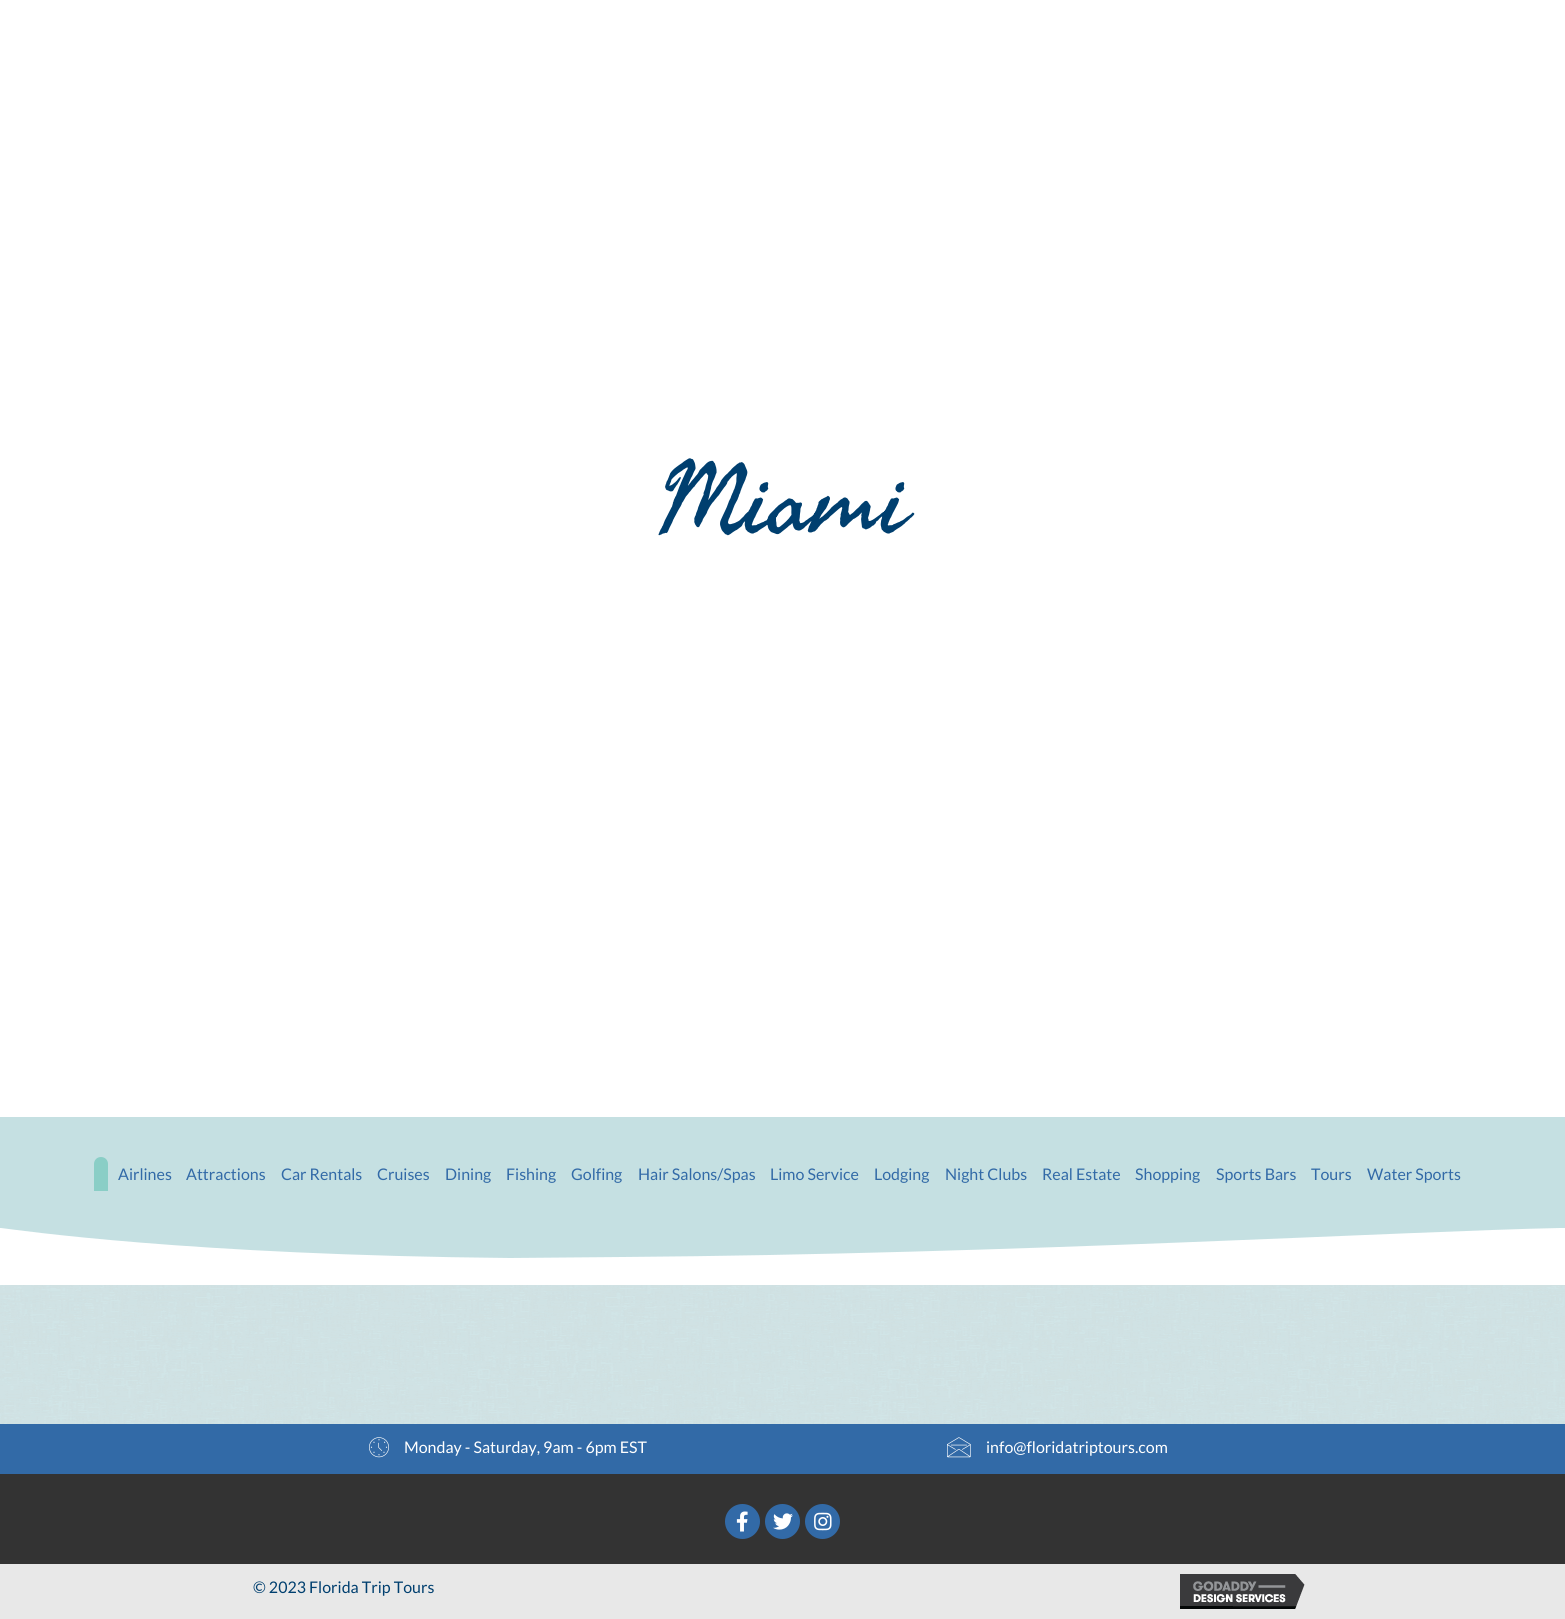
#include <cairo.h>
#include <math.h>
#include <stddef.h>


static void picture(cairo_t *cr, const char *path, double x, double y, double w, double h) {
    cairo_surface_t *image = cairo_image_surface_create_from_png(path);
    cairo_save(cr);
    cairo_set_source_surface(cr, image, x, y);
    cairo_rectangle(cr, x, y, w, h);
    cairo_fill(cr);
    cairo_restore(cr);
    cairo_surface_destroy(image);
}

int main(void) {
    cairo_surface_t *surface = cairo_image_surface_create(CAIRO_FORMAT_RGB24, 1565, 1619);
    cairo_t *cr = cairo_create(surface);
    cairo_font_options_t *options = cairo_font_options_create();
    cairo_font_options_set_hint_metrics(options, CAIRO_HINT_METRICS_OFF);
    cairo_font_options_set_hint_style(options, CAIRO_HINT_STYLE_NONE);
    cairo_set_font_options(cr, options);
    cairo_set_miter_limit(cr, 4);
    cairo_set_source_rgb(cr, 1, 1, 1);
    cairo_paint(cr);
    cairo_select_font_face(cr, "Fasthand", CAIRO_FONT_SLANT_NORMAL, CAIRO_FONT_WEIGHT_NORMAL);
    cairo_set_font_size(cr, 100);
    cairo_set_source_rgb(cr, 0, 0.247, 0.435);
    cairo_move_to(cr, 657, 531);
    cairo_show_text(cr, "Miami");
    cairo_set_source_rgb(cr, 0.773, 0.878, 0.886);
    cairo_rectangle(cr, 0, 1117, 1565, 126);
    cairo_fill(cr);
    cairo_set_source_rgb(cr, 0.541, 0.808, 0.776);
    cairo_new_path(cr);
    cairo_move_to(cr, 101, 1157);
    cairo_curve_to(cr, 105, 1157, 108, 1160, 108, 1164);
    cairo_line_to(cr, 108, 1191);
    cairo_line_to(cr, 94, 1191);
    cairo_line_to(cr, 94, 1164);
    cairo_curve_to(cr, 94, 1160, 97, 1157, 101, 1157);
    cairo_close_path(cr);
    cairo_fill(cr);
    cairo_select_font_face(cr, "Lato", CAIRO_FONT_SLANT_NORMAL, CAIRO_FONT_WEIGHT_NORMAL);
    cairo_set_font_size(cr, 16);
    cairo_set_source_rgb(cr, 0.196, 0.416, 0.655);
    cairo_move_to(cr, 118, 1180);
    cairo_show_text(cr, "Airlines");
    cairo_move_to(cr, 186, 1180);
    cairo_show_text(cr, "Attractions");
    cairo_move_to(cr, 281, 1180);
    cairo_show_text(cr, "Car Rentals");
    cairo_move_to(cr, 377, 1180);
    cairo_show_text(cr, "Cruises");
    cairo_move_to(cr, 445, 1180);
    cairo_show_text(cr, "Dining");
    cairo_move_to(cr, 506, 1180);
    cairo_show_text(cr, "Fishing");
    cairo_move_to(cr, 571, 1180);
    cairo_show_text(cr, "Golfing");
    cairo_move_to(cr, 638, 1180);
    cairo_show_text(cr, "Hair Salons/Spas");
    cairo_move_to(cr, 770, 1180);
    cairo_show_text(cr, "Limo Service");
    cairo_move_to(cr, 874, 1180);
    cairo_show_text(cr, "Lodging");
    cairo_move_to(cr, 945, 1180);
    cairo_show_text(cr, "Night Clubs");
    cairo_move_to(cr, 1042, 1180);
    cairo_show_text(cr, "Real Estate");
    cairo_move_to(cr, 1135, 1180);
    cairo_show_text(cr, "Shopping");
    cairo_move_to(cr, 1216, 1180);
    cairo_show_text(cr, "Sports Bars");
    cairo_move_to(cr, 1311, 1180);
    cairo_show_text(cr, "Tours");
    cairo_move_to(cr, 1367, 1180);
    cairo_show_text(cr, "Water Sports");
    cairo_set_source_rgb(cr, 0.773, 0.878, 0.886);
    cairo_rectangle(cr, 146, 1243, 1022, 15);
    cairo_fill(cr);
    cairo_set_source_rgb(cr, 1, 1, 1);
    cairo_new_path(cr);
    cairo_move_to(cr, 0, 1228);
    cairo_line_to(cr, 1, 1228);
    cairo_curve_to(cr, 18, 1230, 187, 1255, 510, 1258);
    cairo_line_to(cr, 623, 1257);
    cairo_curve_to(cr, 1011, 1254, 1409, 1231, 1560, 1228);
    cairo_line_to(cr, 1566, 1228);
    cairo_line_to(cr, 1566, 1285);
    cairo_line_to(cr, 0, 1285);
    cairo_close_path(cr);
    cairo_fill(cr);
    cairo_set_source_rgb(cr, 0.82, 0.898, 0.906);
    cairo_rectangle(cr, 0, 1285, 1565, 139);
    cairo_fill(cr);
    picture(cr, "img1.png", 0, 1285, 1565, 139);
    cairo_set_source_rgb(cr, 0.196, 0.416, 0.655);
    cairo_rectangle(cr, 0, 1424, 1565, 50);
    cairo_fill(cr);
    picture(cr, "img2.png", 369, 1437, 20, 21);
    cairo_set_source_rgb(cr, 1, 1, 1);
    cairo_move_to(cr, 404, 1453);
    cairo_show_text(cr, "Monday - Saturday, 9am - 6pm EST");
    picture(cr, "img3.png", 947, 1437, 24, 21);
    cairo_move_to(cr, 986, 1453);
    cairo_show_text(cr, "info@floridatriptours.com");
    cairo_set_source_rgb(cr, 0.2, 0.2, 0.2);
    cairo_rectangle(cr, 0, 1474, 1565, 90);
    cairo_fill(cr);
    cairo_set_source_rgb(cr, 0.196, 0.416, 0.655);
    cairo_arc(cr, 742.5, 1521.5, 17.5, 0, 2 * M_PI);
    cairo_fill(cr);
    picture(cr, "img4.png", 736, 1511, 12, 21);
    cairo_arc(cr, 782.5, 1521.5, 17.5, 0, 2 * M_PI);
    cairo_fill(cr);
    picture(cr, "img5.png", 773, 1513, 20, 17);
    cairo_arc(cr, 822.5, 1521.5, 17.5, 0, 2 * M_PI);
    cairo_fill(cr);
    picture(cr, "img6.png", 814, 1512, 18, 19);
    cairo_set_source_rgb(cr, 0.91, 0.91, 0.91);
    cairo_rectangle(cr, 0, 1564, 1565, 55);
    cairo_fill(cr);
    cairo_set_source_rgb(cr, 0, 0.247, 0.435);
    cairo_move_to(cr, 253, 1593);
    cairo_show_text(cr, "© 2023 Florida Trip Tours");
    picture(cr, "img7.png", 1180, 1574, 125, 35);
    cairo_surface_write_to_png(surface, "page.png");
    cairo_font_options_destroy(options);
    cairo_destroy(cr);
    cairo_surface_destroy(surface);
    return 0;
}
